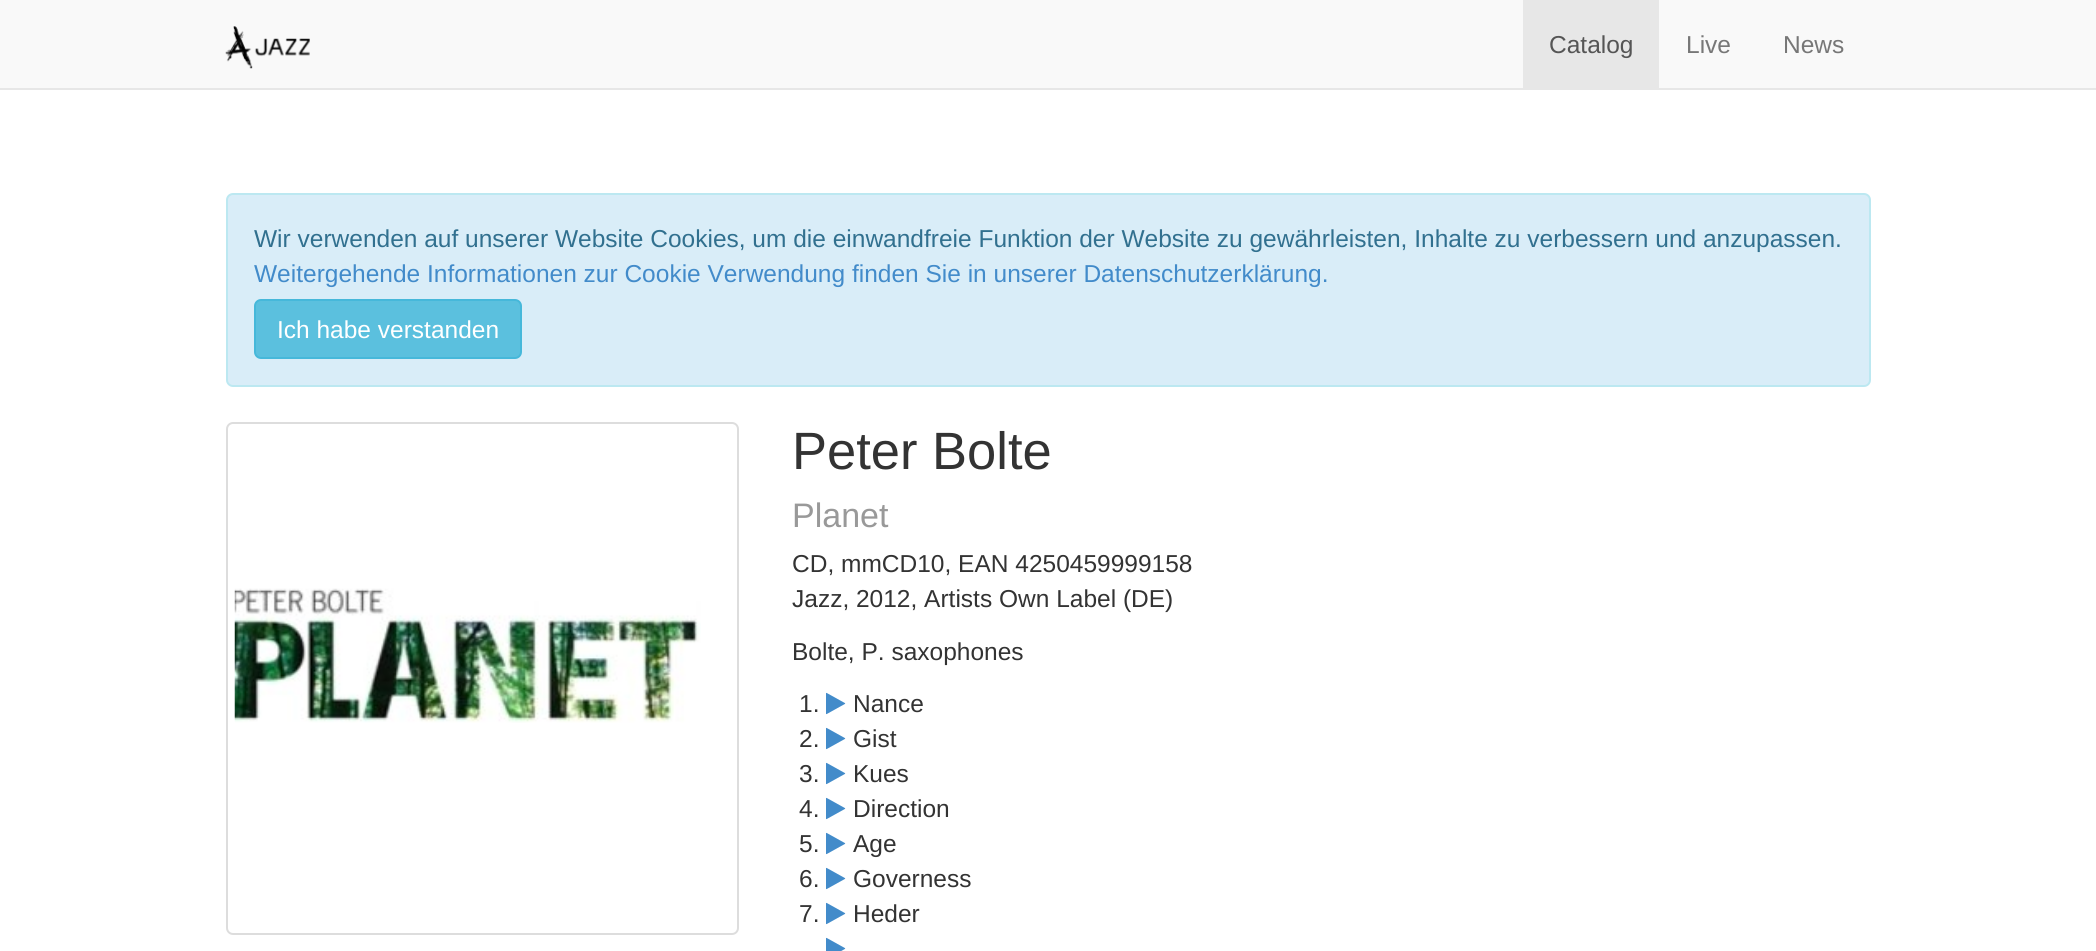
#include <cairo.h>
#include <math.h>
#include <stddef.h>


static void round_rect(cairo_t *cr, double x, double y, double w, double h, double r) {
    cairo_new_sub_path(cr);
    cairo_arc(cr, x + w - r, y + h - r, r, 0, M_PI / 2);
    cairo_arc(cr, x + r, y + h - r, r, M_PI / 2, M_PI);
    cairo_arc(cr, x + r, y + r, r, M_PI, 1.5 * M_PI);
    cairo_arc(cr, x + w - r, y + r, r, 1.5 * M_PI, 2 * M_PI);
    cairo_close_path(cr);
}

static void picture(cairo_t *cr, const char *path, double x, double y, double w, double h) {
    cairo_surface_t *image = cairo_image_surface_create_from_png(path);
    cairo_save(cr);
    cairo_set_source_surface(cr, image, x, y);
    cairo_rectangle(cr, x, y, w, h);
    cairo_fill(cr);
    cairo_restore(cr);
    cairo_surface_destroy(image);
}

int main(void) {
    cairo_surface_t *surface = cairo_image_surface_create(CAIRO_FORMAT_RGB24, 2096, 951);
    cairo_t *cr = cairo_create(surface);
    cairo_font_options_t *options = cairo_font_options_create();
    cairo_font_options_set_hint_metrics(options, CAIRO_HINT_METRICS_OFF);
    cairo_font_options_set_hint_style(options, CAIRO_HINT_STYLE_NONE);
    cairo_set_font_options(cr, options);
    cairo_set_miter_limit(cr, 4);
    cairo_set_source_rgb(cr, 1, 1, 1);
    cairo_paint(cr);
    cairo_set_source_rgb(cr, 0.973, 0.973, 0.973);
    cairo_rectangle(cr, 0, 0, 2096, 88);
    cairo_fill(cr);
    cairo_set_source_rgb(cr, 0.906, 0.906, 0.906);
    cairo_rectangle(cr, 0, 88, 2096, 2);
    cairo_fill(cr);
    picture(cr, "img1.png", 225, 26, 85, 43);
    cairo_rectangle(cr, 1523, 0, 136, 88);
    cairo_fill(cr);
    cairo_select_font_face(cr, "Liberation Sans", CAIRO_FONT_SLANT_NORMAL, CAIRO_FONT_WEIGHT_NORMAL);
    cairo_set_font_size(cr, 24.5);
    cairo_set_source_rgb(cr, 0.333, 0.333, 0.333);
    cairo_move_to(cr, 1549, 53);
    cairo_show_text(cr, "Catalog");
    cairo_set_source_rgb(cr, 0.467, 0.467, 0.467);
    cairo_move_to(cr, 1686, 53);
    cairo_show_text(cr, "Live");
    cairo_move_to(cr, 1783, 53);
    cairo_show_text(cr, "News");
    cairo_set_source_rgb(cr, 0.851, 0.929, 0.969);
    round_rect(cr, 227, 194, 1643, 192, 6);
    cairo_fill_preserve(cr);
    cairo_set_source_rgb(cr, 0.737, 0.91, 0.945);
    cairo_stroke(cr);
    cairo_set_source_rgb(cr, 0.192, 0.439, 0.561);
    cairo_move_to(cr, 254, 247);
    cairo_show_text(cr, "Wir verwenden auf unserer Website Cookies, um die einwandfreie Funktion der Website zu gewährleisten, Inhalte zu verbessern und anzupassen.");
    cairo_set_source_rgb(cr, 0.259, 0.545, 0.792);
    cairo_move_to(cr, 254, 282);
    cairo_show_text(cr, "Weitergehende Informationen zur Cookie Verwendung finden Sie in unserer Datenschutzerklärung.");
    cairo_set_source_rgb(cr, 0.357, 0.753, 0.871);
    round_rect(cr, 255, 300, 266, 58, 6);
    cairo_fill_preserve(cr);
    cairo_set_source_rgb(cr, 0.275, 0.722, 0.855);
    cairo_stroke(cr);
    cairo_set_source_rgb(cr, 1, 1, 1);
    cairo_move_to(cr, 277, 338);
    cairo_show_text(cr, "Ich habe verstanden");
    round_rect(cr, 227, 423, 511, 511, 6);
    cairo_set_source_rgb(cr, 0.867, 0.867, 0.867);
    cairo_stroke(cr);
    picture(cr, "img2.png", 234, 588, 467, 135);
    cairo_set_font_size(cr, 52.5);
    cairo_set_source_rgb(cr, 0.2, 0.2, 0.2);
    cairo_move_to(cr, 792, 469);
    cairo_show_text(cr, "Peter Bolte");
    cairo_set_font_size(cr, 34);
    cairo_set_source_rgb(cr, 0.6, 0.6, 0.6);
    cairo_move_to(cr, 792, 527);
    cairo_show_text(cr, "Planet");
    cairo_set_font_size(cr, 24.5);
    cairo_set_source_rgb(cr, 0.2, 0.2, 0.2);
    cairo_move_to(cr, 792, 572);
    cairo_show_text(cr, "CD, mmCD10, EAN 4250459999158");
    cairo_move_to(cr, 792, 607);
    cairo_show_text(cr, "Jazz, 2012, Artists Own Label (DE)");
    cairo_move_to(cr, 792, 660);
    cairo_show_text(cr, "Bolte, P. saxophones");
    cairo_move_to(cr, 799, 712);
    cairo_show_text(cr, "1.");
    picture(cr, "img3.png", 826, 692, 20, 23);
    cairo_move_to(cr, 853, 712);
    cairo_show_text(cr, "Nance");
    cairo_move_to(cr, 799, 747);
    cairo_show_text(cr, "2.");
    picture(cr, "img3.png", 826, 727, 20, 23);
    cairo_move_to(cr, 853, 747);
    cairo_show_text(cr, "Gist");
    cairo_move_to(cr, 799, 782);
    cairo_show_text(cr, "3.");
    picture(cr, "img3.png", 826, 762, 20, 23);
    cairo_move_to(cr, 853, 782);
    cairo_show_text(cr, "Kues");
    cairo_move_to(cr, 799, 817);
    cairo_show_text(cr, "4.");
    picture(cr, "img3.png", 826, 797, 20, 23);
    cairo_move_to(cr, 853, 817);
    cairo_show_text(cr, "Direction");
    cairo_move_to(cr, 799, 852);
    cairo_show_text(cr, "5.");
    picture(cr, "img3.png", 826, 832, 20, 23);
    cairo_move_to(cr, 853, 852);
    cairo_show_text(cr, "Age");
    cairo_move_to(cr, 799, 887);
    cairo_show_text(cr, "6.");
    picture(cr, "img3.png", 826, 867, 20, 23);
    cairo_move_to(cr, 853, 887);
    cairo_show_text(cr, "Governess");
    cairo_move_to(cr, 799, 922);
    cairo_show_text(cr, "7.");
    picture(cr, "img3.png", 826, 902, 20, 23);
    cairo_move_to(cr, 853, 922);
    cairo_show_text(cr, "Heder");
    picture(cr, "img4.png", 826, 937, 20, 14);
    cairo_surface_write_to_png(surface, "page.png");
    cairo_font_options_destroy(options);
    cairo_destroy(cr);
    cairo_surface_destroy(surface);
    return 0;
}
